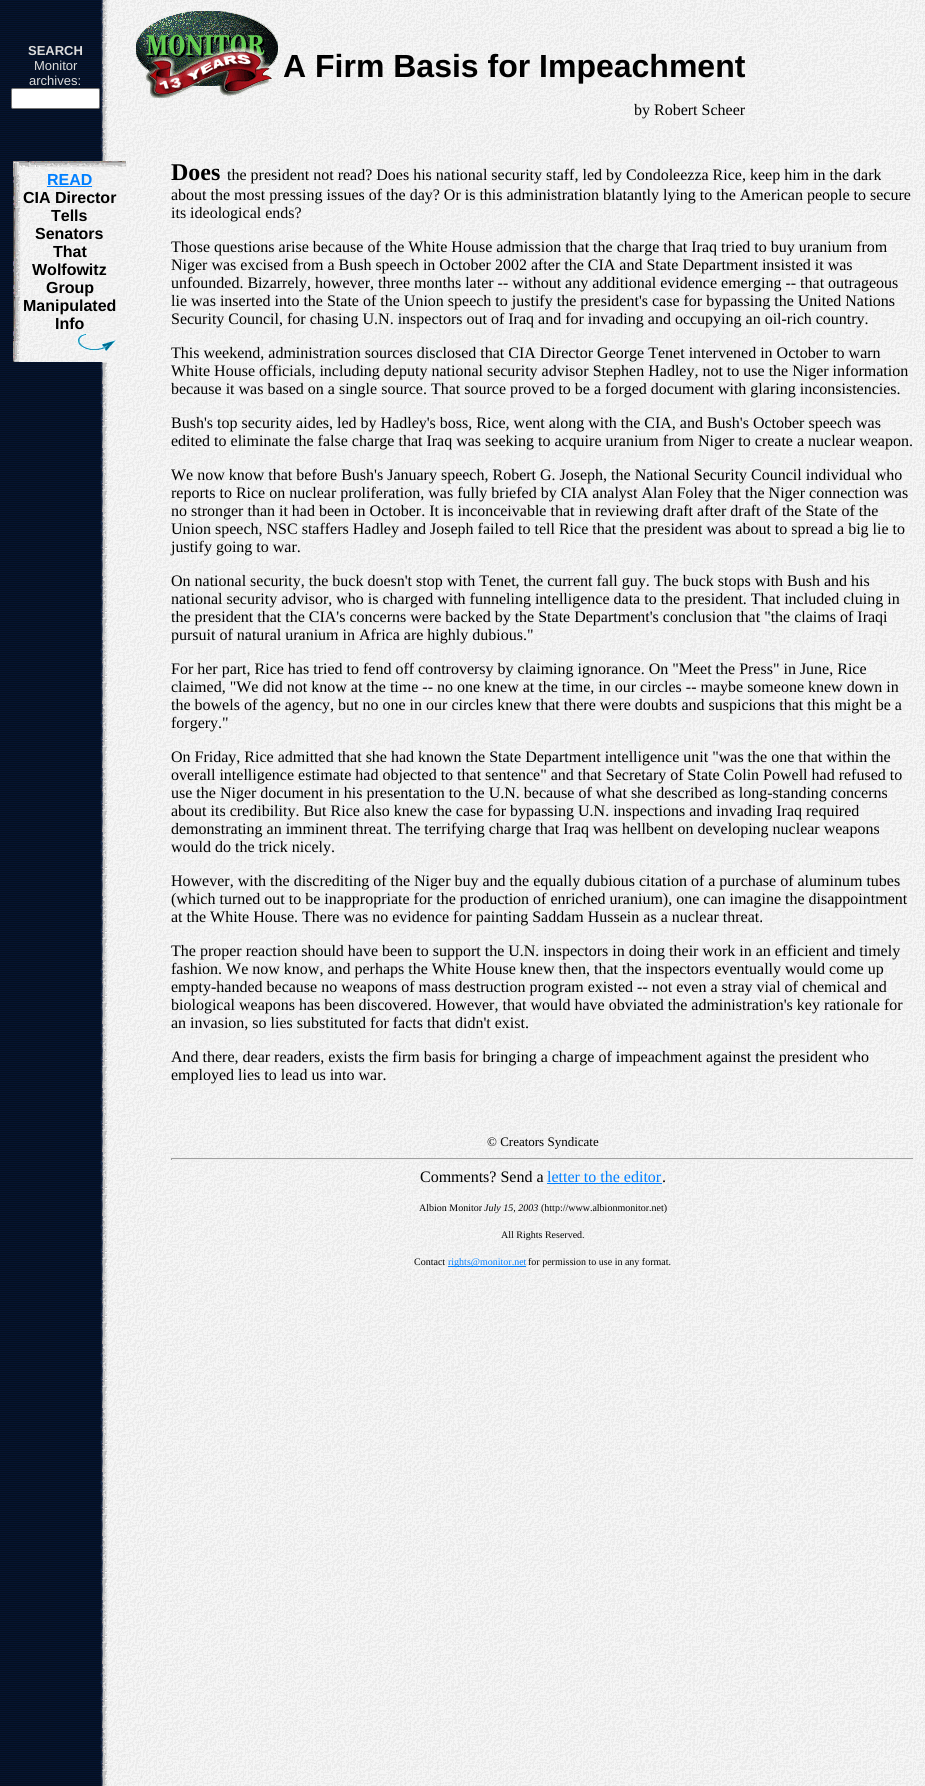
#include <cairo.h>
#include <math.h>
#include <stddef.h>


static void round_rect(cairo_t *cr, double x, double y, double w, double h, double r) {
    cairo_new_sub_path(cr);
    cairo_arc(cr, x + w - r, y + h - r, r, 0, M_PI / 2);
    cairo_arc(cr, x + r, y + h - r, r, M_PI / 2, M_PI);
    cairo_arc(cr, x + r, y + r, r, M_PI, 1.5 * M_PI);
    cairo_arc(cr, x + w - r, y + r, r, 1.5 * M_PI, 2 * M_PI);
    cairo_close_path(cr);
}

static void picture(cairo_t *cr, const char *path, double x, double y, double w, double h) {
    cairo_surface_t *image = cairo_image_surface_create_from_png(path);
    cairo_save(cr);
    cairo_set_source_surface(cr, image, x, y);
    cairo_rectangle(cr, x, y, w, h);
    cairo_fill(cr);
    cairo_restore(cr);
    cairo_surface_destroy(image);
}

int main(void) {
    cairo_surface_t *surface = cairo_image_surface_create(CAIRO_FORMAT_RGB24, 925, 1786);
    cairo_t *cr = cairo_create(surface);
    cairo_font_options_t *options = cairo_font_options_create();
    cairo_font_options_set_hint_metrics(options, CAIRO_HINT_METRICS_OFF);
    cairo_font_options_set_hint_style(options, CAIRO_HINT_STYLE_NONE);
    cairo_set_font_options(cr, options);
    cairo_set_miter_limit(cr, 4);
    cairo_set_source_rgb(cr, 1, 1, 1);
    cairo_paint(cr);
    picture(cr, "img1.png", 0, 0, 925, 1786);
    cairo_select_font_face(cr, "Liberation Sans", CAIRO_FONT_SLANT_NORMAL, CAIRO_FONT_WEIGHT_BOLD);
    cairo_set_font_size(cr, 13);
    cairo_set_source_rgb(cr, 0.867, 0.867, 0.867);
    cairo_move_to(cr, 28, 55);
    cairo_show_text(cr, "SEARCH");
    cairo_select_font_face(cr, "Liberation Sans", CAIRO_FONT_SLANT_NORMAL, CAIRO_FONT_WEIGHT_NORMAL);
    cairo_move_to(cr, 34, 70);
    cairo_show_text(cr, "Monitor");
    cairo_move_to(cr, 29, 85);
    cairo_show_text(cr, "archives:");
    cairo_set_source_rgb(cr, 1, 1, 1);
    round_rect(cr, 11.5, 88.5, 88, 20, 1.5);
    cairo_fill_preserve(cr);
    cairo_set_source_rgb(cr, 0.463, 0.463, 0.463);
    cairo_set_line_width(cr, 1);
    cairo_stroke(cr);
    picture(cr, "img2.png", 136, 11, 142, 87);
    cairo_select_font_face(cr, "Liberation Sans", CAIRO_FONT_SLANT_NORMAL, CAIRO_FONT_WEIGHT_BOLD);
    cairo_set_font_size(cr, 32);
    cairo_set_source_rgb(cr, 0, 0, 0);
    cairo_move_to(cr, 283, 77);
    cairo_show_text(cr, "A Firm Basis for Impeachment");
    cairo_select_font_face(cr, "Liberation Serif", CAIRO_FONT_SLANT_NORMAL, CAIRO_FONT_WEIGHT_NORMAL);
    cairo_set_font_size(cr, 16);
    cairo_move_to(cr, 634, 115);
    cairo_show_text(cr, "by Robert Scheer");
    picture(cr, "img3.png", 13, 161, 113, 201);
    cairo_select_font_face(cr, "Liberation Sans", CAIRO_FONT_SLANT_NORMAL, CAIRO_FONT_WEIGHT_BOLD);
    cairo_set_source_rgb(cr, 0, 0.498, 1);
    cairo_move_to(cr, 47, 185);
    cairo_show_text(cr, "READ");
    cairo_rectangle(cr, 47, 186, 45, 1);
    cairo_fill(cr);
    cairo_set_source_rgb(cr, 0, 0, 0);
    cairo_move_to(cr, 23, 203);
    cairo_show_text(cr, "CIA Director");
    cairo_move_to(cr, 51, 221);
    cairo_show_text(cr, "Tells");
    cairo_move_to(cr, 35, 239);
    cairo_show_text(cr, "Senators");
    cairo_move_to(cr, 53, 257);
    cairo_show_text(cr, "That");
    cairo_move_to(cr, 32, 275);
    cairo_show_text(cr, "Wolfowitz");
    cairo_move_to(cr, 46, 293);
    cairo_show_text(cr, "Group");
    cairo_move_to(cr, 23, 311);
    cairo_show_text(cr, "Manipulated");
    cairo_move_to(cr, 55, 329);
    cairo_show_text(cr, "Info");
    picture(cr, "img4.png", 77, 334, 39, 17);
    cairo_select_font_face(cr, "Liberation Serif", CAIRO_FONT_SLANT_NORMAL, CAIRO_FONT_WEIGHT_BOLD);
    cairo_set_font_size(cr, 24);
    cairo_move_to(cr, 171, 180);
    cairo_show_text(cr, "Does");
    cairo_select_font_face(cr, "Liberation Serif", CAIRO_FONT_SLANT_NORMAL, CAIRO_FONT_WEIGHT_NORMAL);
    cairo_set_font_size(cr, 16);
    cairo_move_to(cr, 227, 180);
    cairo_show_text(cr, "the president not read? Does his national security staff, led by Condoleezza Rice, keep him in the dark");
    cairo_move_to(cr, 171, 200);
    cairo_show_text(cr, "about the most pressing issues of the day? Or is this administration blatantly lying to the American people to secure");
    cairo_move_to(cr, 171, 218);
    cairo_show_text(cr, "its ideological ends?");
    cairo_move_to(cr, 171, 252);
    cairo_show_text(cr, "Those questions arise because of the White House admission that the charge that Iraq tried to buy uranium from");
    cairo_move_to(cr, 171, 270);
    cairo_show_text(cr, "Niger was excised from a Bush speech in October 2002 after the CIA and State Department insisted it was");
    cairo_move_to(cr, 171, 288);
    cairo_show_text(cr, "unfounded. Bizarrely, however, three months later -- without any additional evidence emerging -- that outrageous");
    cairo_move_to(cr, 171, 306);
    cairo_show_text(cr, "lie was inserted into the State of the Union speech to justify the president's case for bypassing the United Nations");
    cairo_move_to(cr, 171, 324);
    cairo_show_text(cr, "Security Council, for chasing U.N. inspectors out of Iraq and for invading and occupying an oil-rich country.");
    cairo_move_to(cr, 171, 358);
    cairo_show_text(cr, "This weekend, administration sources disclosed that CIA Director George Tenet intervened in October to warn");
    cairo_move_to(cr, 171, 376);
    cairo_show_text(cr, "White House officials, including deputy national security advisor Stephen Hadley, not to use the Niger information");
    cairo_move_to(cr, 171, 394);
    cairo_show_text(cr, "because it was based on a single source. That source proved to be a forged document with glaring inconsistencies.");
    cairo_move_to(cr, 171, 428);
    cairo_show_text(cr, "Bush's top security aides, led by Hadley's boss, Rice, went along with the CIA, and Bush's October speech was");
    cairo_move_to(cr, 171, 446);
    cairo_show_text(cr, "edited to eliminate the false charge that Iraq was seeking to acquire uranium from Niger to create a nuclear weapon.");
    cairo_move_to(cr, 171, 480);
    cairo_show_text(cr, "We now know that before Bush's January speech, Robert G. Joseph, the National Security Council individual who");
    cairo_move_to(cr, 171, 498);
    cairo_show_text(cr, "reports to Rice on nuclear proliferation, was fully briefed by CIA analyst Alan Foley that the Niger connection was");
    cairo_move_to(cr, 171, 516);
    cairo_show_text(cr, "no stronger than it had been in October. It is inconceivable that in reviewing draft after draft of the State of the");
    cairo_move_to(cr, 171, 534);
    cairo_show_text(cr, "Union speech, NSC staffers Hadley and Joseph failed to tell Rice that the president was about to spread a big lie to");
    cairo_move_to(cr, 171, 552);
    cairo_show_text(cr, "justify going to war.");
    cairo_move_to(cr, 171, 586);
    cairo_show_text(cr, "On national security, the buck doesn't stop with Tenet, the current fall guy. The buck stops with Bush and his");
    cairo_move_to(cr, 171, 604);
    cairo_show_text(cr, "national security advisor, who is charged with funneling intelligence data to the president. That included cluing in");
    cairo_move_to(cr, 171, 622);
    cairo_show_text(cr, "the president that the CIA's concerns were backed by the State Department's conclusion that \"the claims of Iraqi");
    cairo_move_to(cr, 171, 640);
    cairo_show_text(cr, "pursuit of natural uranium in Africa are highly dubious.\"");
    cairo_move_to(cr, 171, 674);
    cairo_show_text(cr, "For her part, Rice has tried to fend off controversy by claiming ignorance. On \"Meet the Press\" in June, Rice");
    cairo_move_to(cr, 171, 692);
    cairo_show_text(cr, "claimed, \"We did not know at the time -- no one knew at the time, in our circles -- maybe someone knew down in");
    cairo_move_to(cr, 171, 710);
    cairo_show_text(cr, "the bowels of the agency, but no one in our circles knew that there were doubts and suspicions that this might be a");
    cairo_move_to(cr, 171, 728);
    cairo_show_text(cr, "forgery.\"");
    cairo_move_to(cr, 171, 762);
    cairo_show_text(cr, "On Friday, Rice admitted that she had known the State Department intelligence unit \"was the one that within the");
    cairo_move_to(cr, 171, 780);
    cairo_show_text(cr, "overall intelligence estimate had objected to that sentence\" and that Secretary of State Colin Powell had refused to");
    cairo_move_to(cr, 171, 798);
    cairo_show_text(cr, "use the Niger document in his presentation to the U.N. because of what she described as long-standing concerns");
    cairo_move_to(cr, 171, 816);
    cairo_show_text(cr, "about its credibility. But Rice also knew the case for bypassing U.N. inspections and invading Iraq required");
    cairo_move_to(cr, 171, 834);
    cairo_show_text(cr, "demonstrating an imminent threat. The terrifying charge that Iraq was hellbent on developing nuclear weapons");
    cairo_move_to(cr, 171, 852);
    cairo_show_text(cr, "would do the trick nicely.");
    cairo_move_to(cr, 171, 886);
    cairo_show_text(cr, "However, with the discrediting of the Niger buy and the equally dubious citation of a purchase of aluminum tubes");
    cairo_move_to(cr, 171, 904);
    cairo_show_text(cr, "(which turned out to be inappropriate for the production of enriched uranium), one can imagine the disappointment");
    cairo_move_to(cr, 171, 922);
    cairo_show_text(cr, "at the White House. There was no evidence for painting Saddam Hussein as a nuclear threat.");
    cairo_move_to(cr, 171, 956);
    cairo_show_text(cr, "The proper reaction should have been to support the U.N. inspectors in doing their work in an efficient and timely");
    cairo_move_to(cr, 171, 974);
    cairo_show_text(cr, "fashion. We now know, and perhaps the White House knew then, that the inspectors eventually would come up");
    cairo_move_to(cr, 171, 992);
    cairo_show_text(cr, "empty-handed because no weapons of mass destruction program existed -- not even a stray vial of chemical and");
    cairo_move_to(cr, 171, 1010);
    cairo_show_text(cr, "biological weapons has been discovered. However, that would have obviated the administration's key rationale for");
    cairo_move_to(cr, 171, 1028);
    cairo_show_text(cr, "an invasion, so lies substituted for facts that didn't exist.");
    cairo_move_to(cr, 171, 1062);
    cairo_show_text(cr, "And there, dear readers, exists the firm basis for bringing a charge of impeachment against the president who");
    cairo_move_to(cr, 171, 1080);
    cairo_show_text(cr, "employed lies to lead us into war.");
    cairo_set_font_size(cr, 13);
    cairo_move_to(cr, 487, 1146);
    cairo_show_text(cr, "© Creators Syndicate");
    cairo_set_source_rgb(cr, 0.624, 0.624, 0.624);
    cairo_rectangle(cr, 171, 1158, 743, 1);
    cairo_fill(cr);
    cairo_set_source_rgb(cr, 0.933, 0.933, 0.933);
    cairo_rectangle(cr, 913, 1158, 1, 2);
    cairo_fill(cr);
    cairo_rectangle(cr, 171, 1159, 743, 1);
    cairo_fill(cr);
    cairo_set_source_rgb(cr, 0.624, 0.624, 0.624);
    cairo_rectangle(cr, 171, 1158, 1, 2);
    cairo_fill(cr);
    cairo_set_font_size(cr, 16);
    cairo_set_source_rgb(cr, 0, 0, 0);
    cairo_move_to(cr, 420, 1182);
    cairo_show_text(cr, "Comments? Send a");
    cairo_set_source_rgb(cr, 0, 0.498, 1);
    cairo_move_to(cr, 547, 1182);
    cairo_show_text(cr, "letter to the editor");
    cairo_rectangle(cr, 547, 1183, 115, 1);
    cairo_fill(cr);
    cairo_set_source_rgb(cr, 0, 0, 0);
    cairo_move_to(cr, 662, 1182);
    cairo_show_text(cr, ".");
    cairo_set_font_size(cr, 10);
    cairo_move_to(cr, 419, 1211);
    cairo_show_text(cr, "Albion Monitor");
    cairo_select_font_face(cr, "Liberation Serif", CAIRO_FONT_SLANT_ITALIC, CAIRO_FONT_WEIGHT_NORMAL);
    cairo_move_to(cr, 484, 1211);
    cairo_show_text(cr, "July 15, 2003");
    cairo_select_font_face(cr, "Liberation Serif", CAIRO_FONT_SLANT_NORMAL, CAIRO_FONT_WEIGHT_NORMAL);
    cairo_move_to(cr, 541, 1211);
    cairo_show_text(cr, "(http://www.albionmonitor.net)");
    cairo_move_to(cr, 501, 1238);
    cairo_show_text(cr, "All Rights Reserved.");
    cairo_move_to(cr, 414, 1265);
    cairo_show_text(cr, "Contact");
    cairo_set_source_rgb(cr, 0, 0.498, 1);
    cairo_rectangle(cr, 448, 1266, 78, 1);
    cairo_fill(cr);
    cairo_move_to(cr, 448, 1265);
    cairo_show_text(cr, "rights@monitor.net");
    cairo_set_source_rgb(cr, 0, 0, 0);
    cairo_move_to(cr, 528, 1265);
    cairo_show_text(cr, "for permission to use in any format.");
    cairo_surface_write_to_png(surface, "page.png");
    cairo_font_options_destroy(options);
    cairo_destroy(cr);
    cairo_surface_destroy(surface);
    return 0;
}
